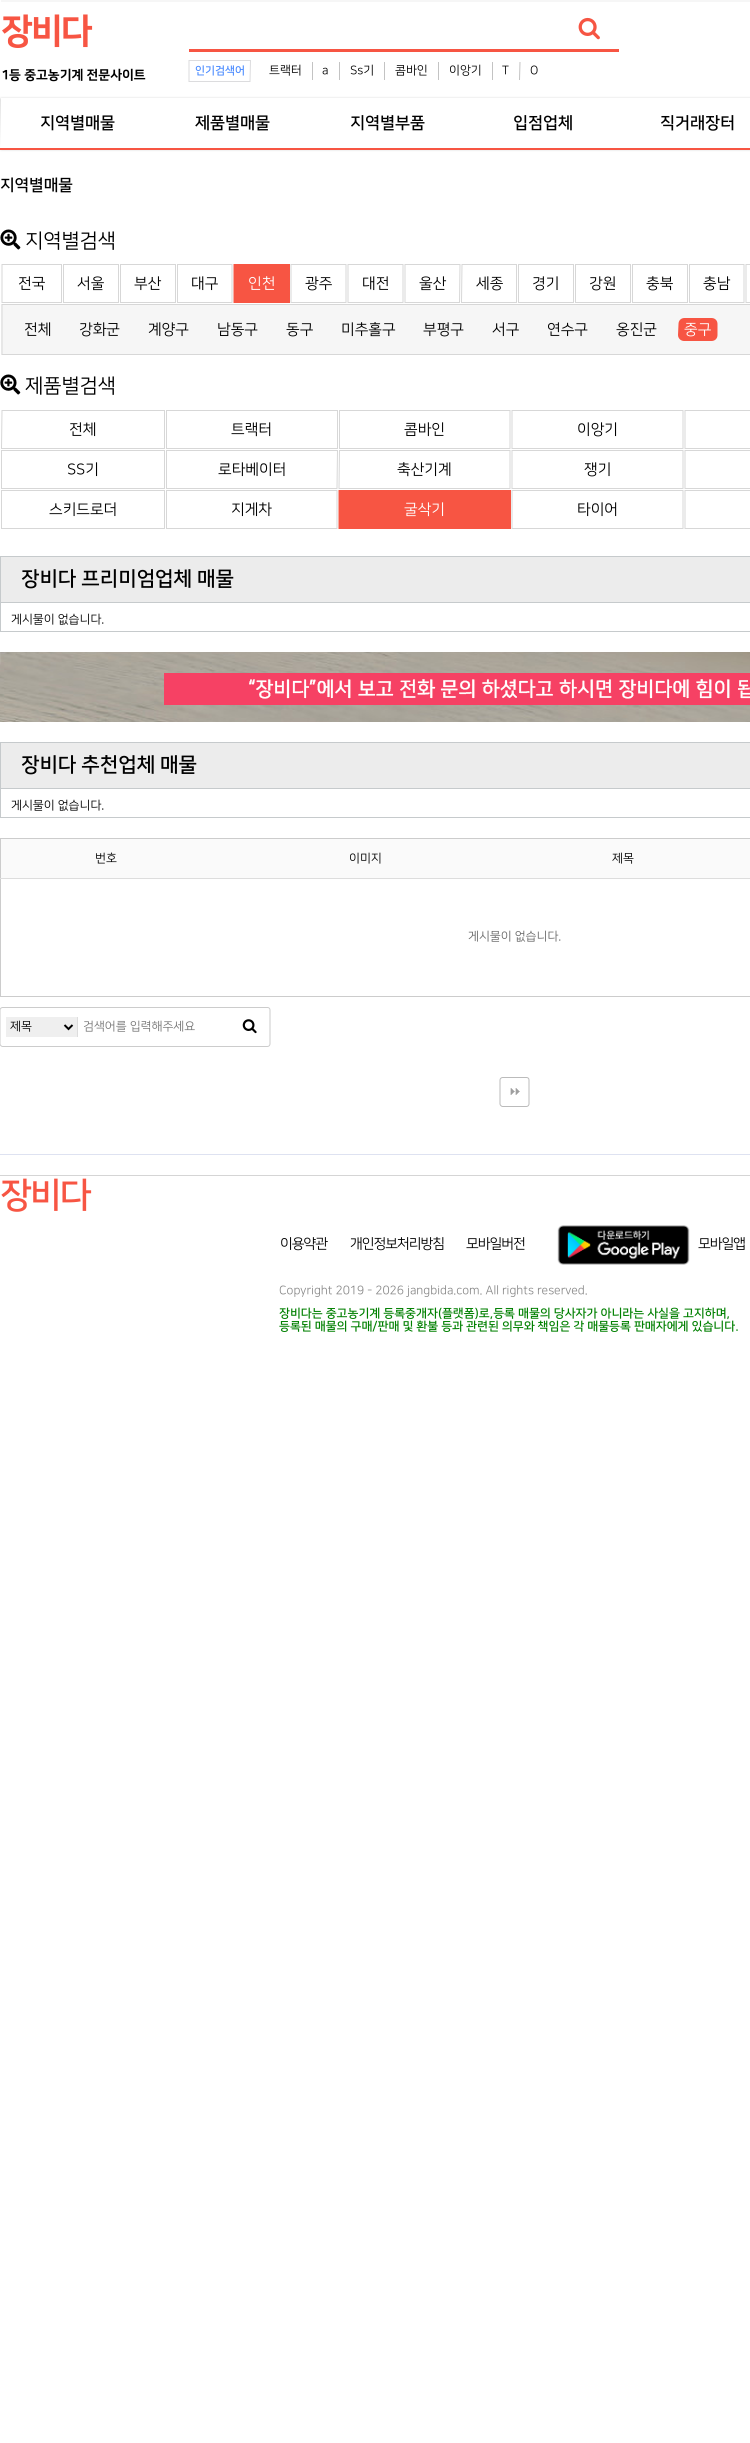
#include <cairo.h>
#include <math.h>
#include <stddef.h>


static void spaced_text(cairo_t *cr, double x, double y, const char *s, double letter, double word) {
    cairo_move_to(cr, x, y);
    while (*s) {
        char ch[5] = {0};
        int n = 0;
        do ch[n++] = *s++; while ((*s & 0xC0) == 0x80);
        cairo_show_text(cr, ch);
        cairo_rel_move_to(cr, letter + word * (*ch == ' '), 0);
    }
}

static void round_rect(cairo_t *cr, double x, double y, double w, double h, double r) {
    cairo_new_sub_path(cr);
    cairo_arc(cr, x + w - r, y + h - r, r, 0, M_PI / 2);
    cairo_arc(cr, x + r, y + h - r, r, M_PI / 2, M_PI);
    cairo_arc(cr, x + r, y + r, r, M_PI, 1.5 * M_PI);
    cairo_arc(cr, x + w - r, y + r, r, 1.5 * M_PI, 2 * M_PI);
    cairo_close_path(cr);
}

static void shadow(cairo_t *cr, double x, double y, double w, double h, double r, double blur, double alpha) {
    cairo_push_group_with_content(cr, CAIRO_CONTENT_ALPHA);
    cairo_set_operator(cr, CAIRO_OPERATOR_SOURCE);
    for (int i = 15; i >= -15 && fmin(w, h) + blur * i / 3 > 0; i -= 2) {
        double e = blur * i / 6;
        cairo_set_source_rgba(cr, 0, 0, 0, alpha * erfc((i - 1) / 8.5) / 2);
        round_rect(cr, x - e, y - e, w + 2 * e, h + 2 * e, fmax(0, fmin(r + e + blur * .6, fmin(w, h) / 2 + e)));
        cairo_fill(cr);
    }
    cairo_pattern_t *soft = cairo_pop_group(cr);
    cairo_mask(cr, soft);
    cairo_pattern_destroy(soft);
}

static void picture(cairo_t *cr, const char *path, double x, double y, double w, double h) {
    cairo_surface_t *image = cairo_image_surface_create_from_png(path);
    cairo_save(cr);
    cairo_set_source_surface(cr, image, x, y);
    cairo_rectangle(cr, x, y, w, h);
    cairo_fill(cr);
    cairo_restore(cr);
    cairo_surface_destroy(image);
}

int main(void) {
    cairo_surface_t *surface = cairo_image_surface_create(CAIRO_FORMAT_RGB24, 750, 2443);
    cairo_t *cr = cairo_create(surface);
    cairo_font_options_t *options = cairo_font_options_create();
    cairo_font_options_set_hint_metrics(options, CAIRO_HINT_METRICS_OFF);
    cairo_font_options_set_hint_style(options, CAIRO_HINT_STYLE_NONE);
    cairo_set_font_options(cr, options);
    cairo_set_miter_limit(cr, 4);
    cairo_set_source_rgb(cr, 1, 1, 1);
    cairo_paint(cr);
    cairo_set_source_rgb(cr, 0.961, 0.961, 0.961);
    cairo_rectangle(cr, 1, 0, 749, 2);
    cairo_fill(cr);
    cairo_select_font_face(cr, "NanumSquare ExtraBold", CAIRO_FONT_SLANT_NORMAL, CAIRO_FONT_WEIGHT_NORMAL);
    cairo_set_font_size(cr, 35);
    cairo_set_source_rgb(cr, 0.965, 0.333, 0.263);
    spaced_text(cr, 1, 42, "장비다", -2, 0);
    cairo_set_font_size(cr, 13);
    cairo_set_source_rgb(cr, 0, 0, 0);
    cairo_move_to(cr, 1, 79);
    cairo_show_text(cr, "1등 중고농기계 전문사이트");
    cairo_set_source_rgb(cr, 0.965, 0.333, 0.263);
    cairo_rectangle(cr, 189, 49, 430, 3);
    cairo_fill(cr);
    picture(cr, "img1.png", 578, 17, 22, 23);
    cairo_new_path(cr);
    cairo_move_to(cr, 189, 60.5);
    cairo_line_to(cr, 250.5, 60.5);
    cairo_line_to(cr, 250, 81.5);
    cairo_line_to(cr, 189, 81.5);
    cairo_close_path(cr);
    cairo_set_source_rgb(cr, 0.863, 0.863, 0.871);
    cairo_set_line_width(cr, 1);
    cairo_stroke(cr);
    cairo_select_font_face(cr, "NanumSquare", CAIRO_FONT_SLANT_NORMAL, CAIRO_FONT_WEIGHT_BOLD);
    cairo_set_font_size(cr, 11);
    cairo_set_source_rgb(cr, 0.294, 0.545, 1);
    cairo_move_to(cr, 195, 74);
    cairo_show_text(cr, "인기검색어");
    cairo_select_font_face(cr, "NanumSquare", CAIRO_FONT_SLANT_NORMAL, CAIRO_FONT_WEIGHT_NORMAL);
    cairo_set_font_size(cr, 12);
    cairo_set_source_rgb(cr, 0, 0, 0);
    cairo_move_to(cr, 269, 74);
    cairo_show_text(cr, "트랙터");
    cairo_set_source_rgb(cr, 0.765, 0.765, 0.765);
    cairo_rectangle(cr, 312, 62, 1, 18);
    cairo_fill(cr);
    cairo_set_source_rgb(cr, 0, 0, 0);
    cairo_move_to(cr, 322, 74);
    cairo_show_text(cr, "a");
    cairo_set_source_rgb(cr, 0.765, 0.765, 0.765);
    cairo_rectangle(cr, 339, 62, 1, 18);
    cairo_fill(cr);
    cairo_set_source_rgb(cr, 0, 0, 0);
    cairo_move_to(cr, 350, 74);
    cairo_show_text(cr, "Ss기");
    cairo_set_source_rgb(cr, 0.765, 0.765, 0.765);
    cairo_rectangle(cr, 384, 62, 1, 18);
    cairo_fill(cr);
    cairo_set_source_rgb(cr, 0, 0, 0);
    cairo_move_to(cr, 395, 74);
    cairo_show_text(cr, "콤바인");
    cairo_set_source_rgb(cr, 0.765, 0.765, 0.765);
    cairo_rectangle(cr, 438, 62, 1, 18);
    cairo_fill(cr);
    cairo_set_source_rgb(cr, 0, 0, 0);
    cairo_move_to(cr, 449, 74);
    cairo_show_text(cr, "이앙기");
    cairo_set_source_rgb(cr, 0.765, 0.765, 0.765);
    cairo_rectangle(cr, 492, 62, 1, 18);
    cairo_fill(cr);
    cairo_set_source_rgb(cr, 0, 0, 0);
    cairo_move_to(cr, 502, 74);
    cairo_show_text(cr, "T");
    cairo_set_source_rgb(cr, 0.765, 0.765, 0.765);
    cairo_new_path(cr);
    cairo_move_to(cr, 519.5, 62);
    cairo_line_to(cr, 520.5, 62);
    cairo_line_to(cr, 520, 80);
    cairo_line_to(cr, 519, 80);
    cairo_close_path(cr);
    cairo_fill(cr);
    cairo_set_source_rgb(cr, 0, 0, 0);
    cairo_move_to(cr, 530, 74);
    cairo_show_text(cr, "O");
    cairo_set_source_rgb(cr, 0, 0, 0);
    shadow(cr, 1, 99, 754, 50, 0, 1.5, 0.3);
    cairo_set_source_rgb(cr, 1, 1, 1);
    cairo_new_path(cr);
    cairo_move_to(cr, 1, 98);
    cairo_line_to(cr, 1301, 98);
    cairo_line_to(cr, 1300, 148);
    cairo_line_to(cr, 0, 148);
    cairo_close_path(cr);
    cairo_fill(cr);
    cairo_select_font_face(cr, "NanumSquare", CAIRO_FONT_SLANT_NORMAL, CAIRO_FONT_WEIGHT_BOLD);
    cairo_set_font_size(cr, 16.5);
    cairo_set_source_rgb(cr, 0, 0, 0);
    cairo_move_to(cr, 40, 128);
    cairo_show_text(cr, "지역별매물");
    cairo_move_to(cr, 195, 128);
    cairo_show_text(cr, "제품별매물");
    cairo_move_to(cr, 350, 128);
    cairo_show_text(cr, "지역별부품");
    cairo_move_to(cr, 513, 128);
    cairo_show_text(cr, "입점업체");
    cairo_move_to(cr, 660, 128);
    cairo_show_text(cr, "직거래장터");
    cairo_set_source_rgb(cr, 0.965, 0.333, 0.263);
    cairo_rectangle(cr, 0, 148, 750, 2);
    cairo_fill(cr);
    cairo_set_source_rgb(cr, 0.871, 0.886, 0.945);
    cairo_rectangle(cr, 0, 1154, 750, 1);
    cairo_fill(cr);
    cairo_set_font_size(cr, 16);
    cairo_set_source_rgb(cr, 0, 0, 0);
    cairo_move_to(cr, 0, 190);
    cairo_show_text(cr, "지역별매물");
    picture(cr, "img2.png", 0, 229, 21, 21);
    cairo_select_font_face(cr, "NanumSquare", CAIRO_FONT_SLANT_NORMAL, CAIRO_FONT_WEIGHT_NORMAL);
    cairo_set_font_size(cr, 20);
    cairo_move_to(cr, 25, 247);
    cairo_show_text(cr, "지역별검색");
    cairo_new_path(cr);
    cairo_move_to(cr, 2, 264.5);
    cairo_line_to(cr, 61.5, 264.5);
    cairo_line_to(cr, 61.5, 302.5);
    cairo_line_to(cr, 2, 302.5);
    cairo_close_path(cr);
    cairo_set_source_rgb(cr, 0.843, 0.843, 0.843);
    cairo_stroke(cr);
    cairo_set_font_size(cr, 15);
    cairo_set_source_rgb(cr, 0, 0, 0);
    cairo_move_to(cr, 18, 288);
    cairo_show_text(cr, "전국");
    cairo_new_path(cr);
    cairo_move_to(cr, 63.5, 264.5);
    cairo_line_to(cr, 118.5, 264.5);
    cairo_line_to(cr, 118.5, 302.5);
    cairo_line_to(cr, 63.5, 302.5);
    cairo_close_path(cr);
    cairo_set_source_rgb(cr, 0.843, 0.843, 0.843);
    cairo_stroke(cr);
    cairo_set_source_rgb(cr, 0, 0, 0);
    cairo_move_to(cr, 77, 288);
    cairo_show_text(cr, "서울");
    cairo_new_path(cr);
    cairo_move_to(cr, 120.5, 264.5);
    cairo_line_to(cr, 175.5, 264.5);
    cairo_line_to(cr, 175.5, 302.5);
    cairo_line_to(cr, 120.5, 302.5);
    cairo_close_path(cr);
    cairo_set_source_rgb(cr, 0.843, 0.843, 0.843);
    cairo_stroke(cr);
    cairo_set_source_rgb(cr, 0, 0, 0);
    cairo_move_to(cr, 134, 288);
    cairo_show_text(cr, "부산");
    cairo_new_path(cr);
    cairo_move_to(cr, 177.5, 264.5);
    cairo_line_to(cr, 232, 264.5);
    cairo_line_to(cr, 232, 302.5);
    cairo_line_to(cr, 177.5, 302.5);
    cairo_close_path(cr);
    cairo_set_source_rgb(cr, 0.843, 0.843, 0.843);
    cairo_stroke(cr);
    cairo_set_source_rgb(cr, 0, 0, 0);
    cairo_move_to(cr, 191, 288);
    cairo_show_text(cr, "대구");
    cairo_set_source_rgb(cr, 0.965, 0.333, 0.263);
    cairo_rectangle(cr, 234, 264, 56, 39);
    cairo_fill(cr);
    cairo_new_path(cr);
    cairo_move_to(cr, 234, 264.5);
    cairo_line_to(cr, 289, 264.5);
    cairo_line_to(cr, 289, 302.5);
    cairo_line_to(cr, 234, 302.5);
    cairo_close_path(cr);
    cairo_stroke(cr);
    cairo_set_source_rgb(cr, 1, 1, 1);
    cairo_move_to(cr, 248, 288);
    cairo_show_text(cr, "인천");
    cairo_new_path(cr);
    cairo_move_to(cr, 291, 264.5);
    cairo_line_to(cr, 346, 264.5);
    cairo_line_to(cr, 346, 302.5);
    cairo_line_to(cr, 291, 302.5);
    cairo_close_path(cr);
    cairo_set_source_rgb(cr, 0.843, 0.843, 0.843);
    cairo_stroke(cr);
    cairo_set_source_rgb(cr, 0, 0, 0);
    cairo_move_to(cr, 305, 288);
    cairo_show_text(cr, "광주");
    cairo_new_path(cr);
    cairo_move_to(cr, 348, 264.5);
    cairo_line_to(cr, 403, 264.5);
    cairo_line_to(cr, 403, 302.5);
    cairo_line_to(cr, 348, 302.5);
    cairo_close_path(cr);
    cairo_set_source_rgb(cr, 0.843, 0.843, 0.843);
    cairo_stroke(cr);
    cairo_set_source_rgb(cr, 0, 0, 0);
    cairo_move_to(cr, 362, 288);
    cairo_show_text(cr, "대전");
    cairo_new_path(cr);
    cairo_move_to(cr, 405, 264.5);
    cairo_line_to(cr, 460, 264.5);
    cairo_line_to(cr, 459.5, 302.5);
    cairo_line_to(cr, 405, 302.5);
    cairo_close_path(cr);
    cairo_set_source_rgb(cr, 0.843, 0.843, 0.843);
    cairo_stroke(cr);
    cairo_set_source_rgb(cr, 0, 0, 0);
    cairo_move_to(cr, 419, 288);
    cairo_show_text(cr, "울산");
    cairo_new_path(cr);
    cairo_move_to(cr, 462, 264.5);
    cairo_line_to(cr, 516.5, 264.5);
    cairo_line_to(cr, 516.5, 302.5);
    cairo_line_to(cr, 461.5, 302.5);
    cairo_close_path(cr);
    cairo_set_source_rgb(cr, 0.843, 0.843, 0.843);
    cairo_stroke(cr);
    cairo_set_source_rgb(cr, 0, 0, 0);
    cairo_move_to(cr, 476, 288);
    cairo_show_text(cr, "세종");
    cairo_new_path(cr);
    cairo_move_to(cr, 518.5, 264.5);
    cairo_line_to(cr, 573.5, 264.5);
    cairo_line_to(cr, 573.5, 302.5);
    cairo_line_to(cr, 518.5, 302.5);
    cairo_close_path(cr);
    cairo_set_source_rgb(cr, 0.843, 0.843, 0.843);
    cairo_stroke(cr);
    cairo_set_source_rgb(cr, 0, 0, 0);
    cairo_move_to(cr, 532, 288);
    cairo_show_text(cr, "경기");
    cairo_new_path(cr);
    cairo_move_to(cr, 575.5, 264.5);
    cairo_line_to(cr, 630.5, 264.5);
    cairo_line_to(cr, 630.5, 302.5);
    cairo_line_to(cr, 575.5, 302.5);
    cairo_close_path(cr);
    cairo_set_source_rgb(cr, 0.843, 0.843, 0.843);
    cairo_stroke(cr);
    cairo_set_source_rgb(cr, 0, 0, 0);
    cairo_move_to(cr, 589, 288);
    cairo_show_text(cr, "강원");
    cairo_new_path(cr);
    cairo_move_to(cr, 632.5, 264.5);
    cairo_line_to(cr, 687.5, 264.5);
    cairo_line_to(cr, 687.5, 302.5);
    cairo_line_to(cr, 632.5, 302.5);
    cairo_close_path(cr);
    cairo_set_source_rgb(cr, 0.843, 0.843, 0.843);
    cairo_stroke(cr);
    cairo_set_source_rgb(cr, 0, 0, 0);
    cairo_move_to(cr, 646, 288);
    cairo_show_text(cr, "충북");
    cairo_new_path(cr);
    cairo_move_to(cr, 689.5, 264.5);
    cairo_line_to(cr, 744, 264.5);
    cairo_line_to(cr, 744, 302.5);
    cairo_line_to(cr, 689.5, 302.5);
    cairo_close_path(cr);
    cairo_move_to(cr, 746, 264.5);
    cairo_line_to(cr, 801, 264.5);
    cairo_line_to(cr, 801, 302.5);
    cairo_line_to(cr, 746, 302.5);
    cairo_close_path(cr);
    cairo_set_source_rgb(cr, 0.843, 0.843, 0.843);
    cairo_stroke(cr);
    cairo_set_source_rgb(cr, 0, 0, 0);
    cairo_move_to(cr, 703, 288);
    cairo_show_text(cr, "충남");
    cairo_set_source_rgb(cr, 0.961, 0.961, 0.961);
    cairo_rectangle(cr, 1, 304, 749, 51);
    cairo_fill(cr);
    cairo_new_path(cr);
    cairo_move_to(cr, 2, 304.5);
    cairo_line_to(cr, 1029, 304.5);
    cairo_line_to(cr, 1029, 354.5);
    cairo_line_to(cr, 2, 354.5);
    cairo_close_path(cr);
    cairo_set_source_rgb(cr, 0.843, 0.843, 0.843);
    cairo_stroke(cr);
    cairo_set_source_rgb(cr, 0, 0, 0);
    cairo_move_to(cr, 24, 334);
    cairo_show_text(cr, "전체");
    cairo_move_to(cr, 79, 334);
    cairo_show_text(cr, "강화군");
    cairo_move_to(cr, 148, 334);
    cairo_show_text(cr, "계양구");
    cairo_move_to(cr, 217, 334);
    cairo_show_text(cr, "남동구");
    cairo_move_to(cr, 286, 334);
    cairo_show_text(cr, "동구");
    cairo_move_to(cr, 341, 334);
    cairo_show_text(cr, "미추홀구");
    cairo_move_to(cr, 423, 334);
    cairo_show_text(cr, "부평구");
    cairo_move_to(cr, 492, 334);
    cairo_show_text(cr, "서구");
    cairo_move_to(cr, 547, 334);
    cairo_show_text(cr, "연수구");
    cairo_move_to(cr, 616, 334);
    cairo_show_text(cr, "옹진군");
    cairo_set_source_rgb(cr, 0.965, 0.333, 0.263);
    cairo_new_path(cr);
    cairo_move_to(cr, 684.5, 318);
    cairo_line_to(cr, 711.5, 318);
    cairo_curve_to(cr, 715, 318, 717.5, 320.5, 717.5, 324);
    cairo_line_to(cr, 717.5, 335);
    cairo_curve_to(cr, 717.5, 338.5, 715, 341, 711.5, 341);
    cairo_line_to(cr, 684, 341);
    cairo_curve_to(cr, 681, 341, 678, 338.5, 678, 335);
    cairo_line_to(cr, 678.5, 324);
    cairo_curve_to(cr, 678.5, 320.5, 681, 318, 684.5, 318);
    cairo_close_path(cr);
    cairo_fill(cr);
    cairo_set_source_rgb(cr, 1, 1, 1);
    cairo_move_to(cr, 684, 334);
    cairo_show_text(cr, "중구");
    picture(cr, "img3.png", 0, 374, 21, 21);
    cairo_set_font_size(cr, 20);
    cairo_set_source_rgb(cr, 0, 0, 0);
    cairo_move_to(cr, 25, 392);
    cairo_show_text(cr, "제품별검색");
    cairo_new_path(cr);
    cairo_move_to(cr, 2, 410.5);
    cairo_line_to(cr, 164.5, 410.5);
    cairo_line_to(cr, 164.5, 448.5);
    cairo_line_to(cr, 1.5, 448.5);
    cairo_close_path(cr);
    cairo_set_source_rgb(cr, 0.843, 0.843, 0.843);
    cairo_stroke(cr);
    cairo_set_font_size(cr, 15);
    cairo_set_source_rgb(cr, 0, 0, 0);
    cairo_move_to(cr, 69, 434);
    cairo_show_text(cr, "전체");
    cairo_new_path(cr);
    cairo_move_to(cr, 166.5, 410.5);
    cairo_line_to(cr, 337.5, 410.5);
    cairo_line_to(cr, 337.5, 448.5);
    cairo_line_to(cr, 166.5, 448.5);
    cairo_close_path(cr);
    cairo_set_source_rgb(cr, 0.843, 0.843, 0.843);
    cairo_stroke(cr);
    cairo_set_source_rgb(cr, 0, 0, 0);
    cairo_move_to(cr, 231, 434);
    cairo_show_text(cr, "트랙터");
    cairo_new_path(cr);
    cairo_move_to(cr, 339.5, 410.5);
    cairo_line_to(cr, 510, 410.5);
    cairo_line_to(cr, 510, 448.5);
    cairo_line_to(cr, 339.5, 448.5);
    cairo_close_path(cr);
    cairo_set_source_rgb(cr, 0.843, 0.843, 0.843);
    cairo_stroke(cr);
    cairo_set_source_rgb(cr, 0, 0, 0);
    cairo_move_to(cr, 404, 434);
    cairo_show_text(cr, "콤바인");
    cairo_new_path(cr);
    cairo_move_to(cr, 512, 410.5);
    cairo_line_to(cr, 683, 410.5);
    cairo_line_to(cr, 683, 448.5);
    cairo_line_to(cr, 512, 448.5);
    cairo_close_path(cr);
    cairo_set_source_rgb(cr, 0.843, 0.843, 0.843);
    cairo_stroke(cr);
    cairo_set_source_rgb(cr, 0, 0, 0);
    cairo_move_to(cr, 577, 434);
    cairo_show_text(cr, "이앙기");
    cairo_new_path(cr);
    cairo_move_to(cr, 685, 410.5);
    cairo_line_to(cr, 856, 410.5);
    cairo_line_to(cr, 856, 448.5);
    cairo_line_to(cr, 685, 448.5);
    cairo_close_path(cr);
    cairo_set_source_rgb(cr, 0.843, 0.843, 0.843);
    cairo_stroke(cr);
    cairo_new_path(cr);
    cairo_move_to(cr, 1.5, 450.5);
    cairo_line_to(cr, 164.5, 450.5);
    cairo_line_to(cr, 164.5, 488.5);
    cairo_line_to(cr, 1.5, 488.5);
    cairo_close_path(cr);
    cairo_stroke(cr);
    cairo_set_source_rgb(cr, 0, 0, 0);
    cairo_move_to(cr, 67, 474);
    cairo_show_text(cr, "SS기");
    cairo_new_path(cr);
    cairo_move_to(cr, 166.5, 450.5);
    cairo_line_to(cr, 337.5, 450.5);
    cairo_line_to(cr, 337, 488.5);
    cairo_line_to(cr, 166.5, 488.5);
    cairo_close_path(cr);
    cairo_set_source_rgb(cr, 0.843, 0.843, 0.843);
    cairo_stroke(cr);
    cairo_set_source_rgb(cr, 0, 0, 0);
    cairo_move_to(cr, 218, 474);
    cairo_show_text(cr, "로타베이터");
    cairo_new_path(cr);
    cairo_move_to(cr, 339.5, 450.5);
    cairo_line_to(cr, 510, 450.5);
    cairo_line_to(cr, 510, 488.5);
    cairo_line_to(cr, 339, 488.5);
    cairo_close_path(cr);
    cairo_set_source_rgb(cr, 0.843, 0.843, 0.843);
    cairo_stroke(cr);
    cairo_set_source_rgb(cr, 0, 0, 0);
    cairo_move_to(cr, 397, 474);
    cairo_show_text(cr, "축산기계");
    cairo_new_path(cr);
    cairo_move_to(cr, 512, 450.5);
    cairo_line_to(cr, 683, 450.5);
    cairo_line_to(cr, 683, 488.5);
    cairo_line_to(cr, 512, 488.5);
    cairo_close_path(cr);
    cairo_set_source_rgb(cr, 0.843, 0.843, 0.843);
    cairo_stroke(cr);
    cairo_set_source_rgb(cr, 0, 0, 0);
    cairo_move_to(cr, 584, 474);
    cairo_show_text(cr, "쟁기");
    cairo_new_path(cr);
    cairo_move_to(cr, 685, 450.5);
    cairo_line_to(cr, 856, 450.5);
    cairo_line_to(cr, 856, 488.5);
    cairo_line_to(cr, 685, 488.5);
    cairo_close_path(cr);
    cairo_set_source_rgb(cr, 0.843, 0.843, 0.843);
    cairo_stroke(cr);
    cairo_new_path(cr);
    cairo_move_to(cr, 1.5, 490.5);
    cairo_line_to(cr, 164.5, 490.5);
    cairo_line_to(cr, 164.5, 528.5);
    cairo_line_to(cr, 1.5, 528.5);
    cairo_close_path(cr);
    cairo_stroke(cr);
    cairo_set_source_rgb(cr, 0, 0, 0);
    cairo_move_to(cr, 49, 514);
    cairo_show_text(cr, "스키드로더");
    cairo_new_path(cr);
    cairo_move_to(cr, 166.5, 490.5);
    cairo_line_to(cr, 337, 490.5);
    cairo_line_to(cr, 337, 528.5);
    cairo_line_to(cr, 166.5, 528.5);
    cairo_close_path(cr);
    cairo_set_source_rgb(cr, 0.843, 0.843, 0.843);
    cairo_stroke(cr);
    cairo_set_source_rgb(cr, 0, 0, 0);
    cairo_move_to(cr, 231, 514);
    cairo_show_text(cr, "지게차");
    cairo_set_source_rgb(cr, 0.965, 0.333, 0.263);
    cairo_rectangle(cr, 339, 490, 172, 39);
    cairo_fill(cr);
    cairo_new_path(cr);
    cairo_move_to(cr, 339, 490.5);
    cairo_line_to(cr, 510, 490.5);
    cairo_line_to(cr, 510, 528.5);
    cairo_line_to(cr, 339, 528.5);
    cairo_close_path(cr);
    cairo_stroke(cr);
    cairo_set_source_rgb(cr, 1, 1, 1);
    cairo_move_to(cr, 404, 514);
    cairo_show_text(cr, "굴삭기");
    cairo_new_path(cr);
    cairo_move_to(cr, 512, 490.5);
    cairo_line_to(cr, 683, 490.5);
    cairo_line_to(cr, 683, 528.5);
    cairo_line_to(cr, 512, 528.5);
    cairo_close_path(cr);
    cairo_set_source_rgb(cr, 0.843, 0.843, 0.843);
    cairo_stroke(cr);
    cairo_set_source_rgb(cr, 0, 0, 0);
    cairo_move_to(cr, 577, 514);
    cairo_show_text(cr, "타이어");
    cairo_new_path(cr);
    cairo_move_to(cr, 685, 490.5);
    cairo_line_to(cr, 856, 490.5);
    cairo_line_to(cr, 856, 528.5);
    cairo_line_to(cr, 685, 528.5);
    cairo_close_path(cr);
    cairo_set_source_rgb(cr, 0.843, 0.843, 0.843);
    cairo_stroke(cr);
    cairo_new_path(cr);
    cairo_move_to(cr, 0.5, 556.5);
    cairo_line_to(cr, 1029.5, 556.5);
    cairo_line_to(cr, 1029.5, 631.5);
    cairo_line_to(cr, 0.5, 631.5);
    cairo_close_path(cr);
    cairo_set_source_rgb(cr, 0.776, 0.792, 0.8);
    cairo_stroke(cr);
    cairo_set_source_rgb(cr, 0.925, 0.925, 0.925);
    cairo_rectangle(cr, 1, 557, 749, 45);
    cairo_fill(cr);
    cairo_set_source_rgb(cr, 0.776, 0.792, 0.8);
    cairo_rectangle(cr, 1, 602, 749, 1);
    cairo_fill(cr);
    cairo_select_font_face(cr, "NanumSquare", CAIRO_FONT_SLANT_NORMAL, CAIRO_FONT_WEIGHT_BOLD);
    cairo_set_font_size(cr, 20.25);
    cairo_set_source_rgb(cr, 0, 0, 0);
    cairo_move_to(cr, 21, 585);
    cairo_show_text(cr, "장비다 프리미엄업체 매물");
    cairo_select_font_face(cr, "NanumSquare", CAIRO_FONT_SLANT_NORMAL, CAIRO_FONT_WEIGHT_NORMAL);
    cairo_set_font_size(cr, 12);
    cairo_move_to(cr, 11, 623);
    cairo_show_text(cr, "게시물이 없습니다.");
    picture(cr, "img4.png", 0, 652, 750, 70);
    cairo_new_path(cr);
    cairo_move_to(cr, 0.5, 742.5);
    cairo_line_to(cr, 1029.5, 742.5);
    cairo_line_to(cr, 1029.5, 817.5);
    cairo_line_to(cr, 0.5, 817.5);
    cairo_close_path(cr);
    cairo_set_source_rgb(cr, 0.776, 0.792, 0.8);
    cairo_stroke(cr);
    cairo_set_source_rgb(cr, 0.925, 0.925, 0.925);
    cairo_rectangle(cr, 1, 743, 749, 45);
    cairo_fill(cr);
    cairo_set_source_rgb(cr, 0.776, 0.792, 0.8);
    cairo_rectangle(cr, 1, 788, 749, 1);
    cairo_fill(cr);
    cairo_select_font_face(cr, "NanumSquare", CAIRO_FONT_SLANT_NORMAL, CAIRO_FONT_WEIGHT_BOLD);
    cairo_set_font_size(cr, 20.25);
    cairo_set_source_rgb(cr, 0, 0, 0);
    cairo_move_to(cr, 21, 771);
    cairo_show_text(cr, "장비다 추천업체 매물");
    cairo_select_font_face(cr, "NanumSquare", CAIRO_FONT_SLANT_NORMAL, CAIRO_FONT_WEIGHT_NORMAL);
    cairo_set_font_size(cr, 12);
    cairo_move_to(cr, 11, 809);
    cairo_show_text(cr, "게시물이 없습니다.");
    cairo_set_source_rgb(cr, 0.8, 0.8, 0.8);
    cairo_rectangle(cr, 0, 838, 750, 1);
    cairo_fill(cr);
    cairo_rectangle(cr, 0, 996, 750, 1);
    cairo_fill(cr);
    cairo_rectangle(cr, 0, 838, 1, 159);
    cairo_fill(cr);
    cairo_set_source_rgb(cr, 0.98, 0.98, 0.98);
    cairo_rectangle(cr, 1, 839, 749, 39);
    cairo_fill(cr);
    cairo_set_source_rgb(cr, 0, 0, 0);
    cairo_move_to(cr, 95, 862);
    cairo_show_text(cr, "번호");
    cairo_move_to(cr, 349, 862);
    cairo_show_text(cr, "이미지");
    cairo_move_to(cr, 612, 862);
    cairo_show_text(cr, "제목");
    cairo_set_source_rgb(cr, 0.867, 0.867, 0.867);
    cairo_rectangle(cr, 0, 878, 750, 1);
    cairo_fill(cr);
    cairo_set_source_rgb(cr, 0.4, 0.4, 0.4);
    cairo_move_to(cr, 468, 940);
    cairo_show_text(cr, "게시물이 없습니다.");
    cairo_new_path(cr);
    cairo_move_to(cr, 2.5, 1007.5);
    cairo_line_to(cr, 267.5, 1007.5);
    cairo_curve_to(cr, 269, 1007.5, 270, 1008.5, 270, 1010);
    cairo_line_to(cr, 270, 1044);
    cairo_curve_to(cr, 270, 1045, 269, 1046.5, 267.5, 1046.5);
    cairo_line_to(cr, 2.5, 1046.5);
    cairo_curve_to(cr, 1.5, 1046.5, 0, 1045, 0, 1044);
    cairo_line_to(cr, 0, 1010);
    cairo_curve_to(cr, 0, 1008.5, 1.5, 1007.5, 2.5, 1007.5);
    cairo_close_path(cr);
    cairo_set_source_rgb(cr, 0.8, 0.8, 0.8);
    cairo_stroke(cr);
    cairo_set_source_rgb(cr, 0.937, 0.937, 0.937);
    cairo_rectangle(cr, 6, 1017, 71, 20);
    cairo_fill(cr);
    cairo_set_source_rgb(cr, 0.867, 0.867, 0.867);
    cairo_rectangle(cr, 77, 1017, 1, 20);
    cairo_fill(cr);
    cairo_new_path(cr);
    cairo_move_to(cr, 64.5, 1025);
    cairo_line_to(cr, 68.5, 1029);
    cairo_line_to(cr, 72.5, 1025);
    cairo_set_source_rgb(cr, 0, 0, 0);
    cairo_set_line_width(cr, 2);
    cairo_stroke(cr);
    cairo_move_to(cr, 10, 1030);
    cairo_show_text(cr, "제목");
    cairo_save(cr);
    cairo_new_path(cr);
    cairo_move_to(cr, 82.5, 1020.5);
    cairo_line_to(cr, 229.5, 1020.5);
    cairo_line_to(cr, 229.5, 1033.5);
    cairo_line_to(cr, 82.5, 1033.5);
    cairo_close_path(cr);
    cairo_clip(cr);
    cairo_set_source_rgb(cr, 0.459, 0.459, 0.459);
    cairo_move_to(cr, 83, 1030);
    cairo_show_text(cr, "검색어를 입력해주세요");
    cairo_restore(cr);
    picture(cr, "img5.png", 242, 1019, 15, 15);
    picture(cr, "img6.png", 510, 1088, 10, 7);
    cairo_new_path(cr);
    cairo_move_to(cr, 502.5, 1077.5);
    cairo_line_to(cr, 526.5, 1077.5);
    cairo_curve_to(cr, 528, 1077.5, 529, 1078.5, 529, 1080);
    cairo_line_to(cr, 529, 1104);
    cairo_curve_to(cr, 529, 1105, 528, 1106.5, 526.5, 1106.5);
    cairo_line_to(cr, 502.5, 1106.5);
    cairo_curve_to(cr, 501.5, 1106.5, 500, 1105, 500, 1104);
    cairo_line_to(cr, 500, 1080);
    cairo_curve_to(cr, 500, 1078.5, 501.5, 1077.5, 502.5, 1077.5);
    cairo_close_path(cr);
    cairo_set_source_rgb(cr, 0.733, 0.733, 0.733);
    cairo_set_line_width(cr, 1);
    cairo_stroke(cr);
    cairo_set_source_rgb(cr, 0.835, 0.835, 0.835);
    cairo_rectangle(cr, 0, 1175, 750, 1);
    cairo_fill(cr);
    cairo_select_font_face(cr, "NanumSquare", CAIRO_FONT_SLANT_NORMAL, CAIRO_FONT_WEIGHT_BOLD);
    cairo_set_font_size(cr, 35);
    cairo_set_source_rgb(cr, 0.965, 0.333, 0.263);
    spaced_text(cr, 0, 1206, "장비다", -2, 0);
    cairo_select_font_face(cr, "NanumSquare", CAIRO_FONT_SLANT_NORMAL, CAIRO_FONT_WEIGHT_NORMAL);
    cairo_set_font_size(cr, 14);
    cairo_set_source_rgb(cr, 0, 0, 0);
    spaced_text(cr, 280, 1248, "이용약관", -1, 0);
    spaced_text(cr, 350, 1248, "개인정보처리방침", -1, 0);
    spaced_text(cr, 466, 1248, "모바일버전", -1, 0);
    picture(cr, "img7.png", 557, 1225, 133, 40);
    spaced_text(cr, 698, 1248, "모바일앱", -1, 0);
    cairo_set_font_size(cr, 12);
    cairo_set_source_rgb(cr, 0.533, 0.533, 0.533);
    cairo_move_to(cr, 279, 1294);
    cairo_show_text(cr, "Copyright 2019 - 2026 jangbida.com. All rights reserved.");
    cairo_select_font_face(cr, "NanumSquare", CAIRO_FONT_SLANT_NORMAL, CAIRO_FONT_WEIGHT_BOLD);
    cairo_set_source_rgb(cr, 0, 0.502, 0);
    cairo_move_to(cr, 279, 1317);
    cairo_show_text(cr, "장비다는 중고농기계 등록중개자(플랫폼)로,등록 매물의 당사자가 아니라는 사실을 고지하며,");
    cairo_move_to(cr, 279, 1330);
    cairo_show_text(cr, "등록된 매물의 구매/판매 및 환불 등과 관련된 의무와 책임은 각 매물등록 판매자에게 있습니다.");
    cairo_surface_write_to_png(surface, "page.png");
    cairo_font_options_destroy(options);
    cairo_destroy(cr);
    cairo_surface_destroy(surface);
    return 0;
}
